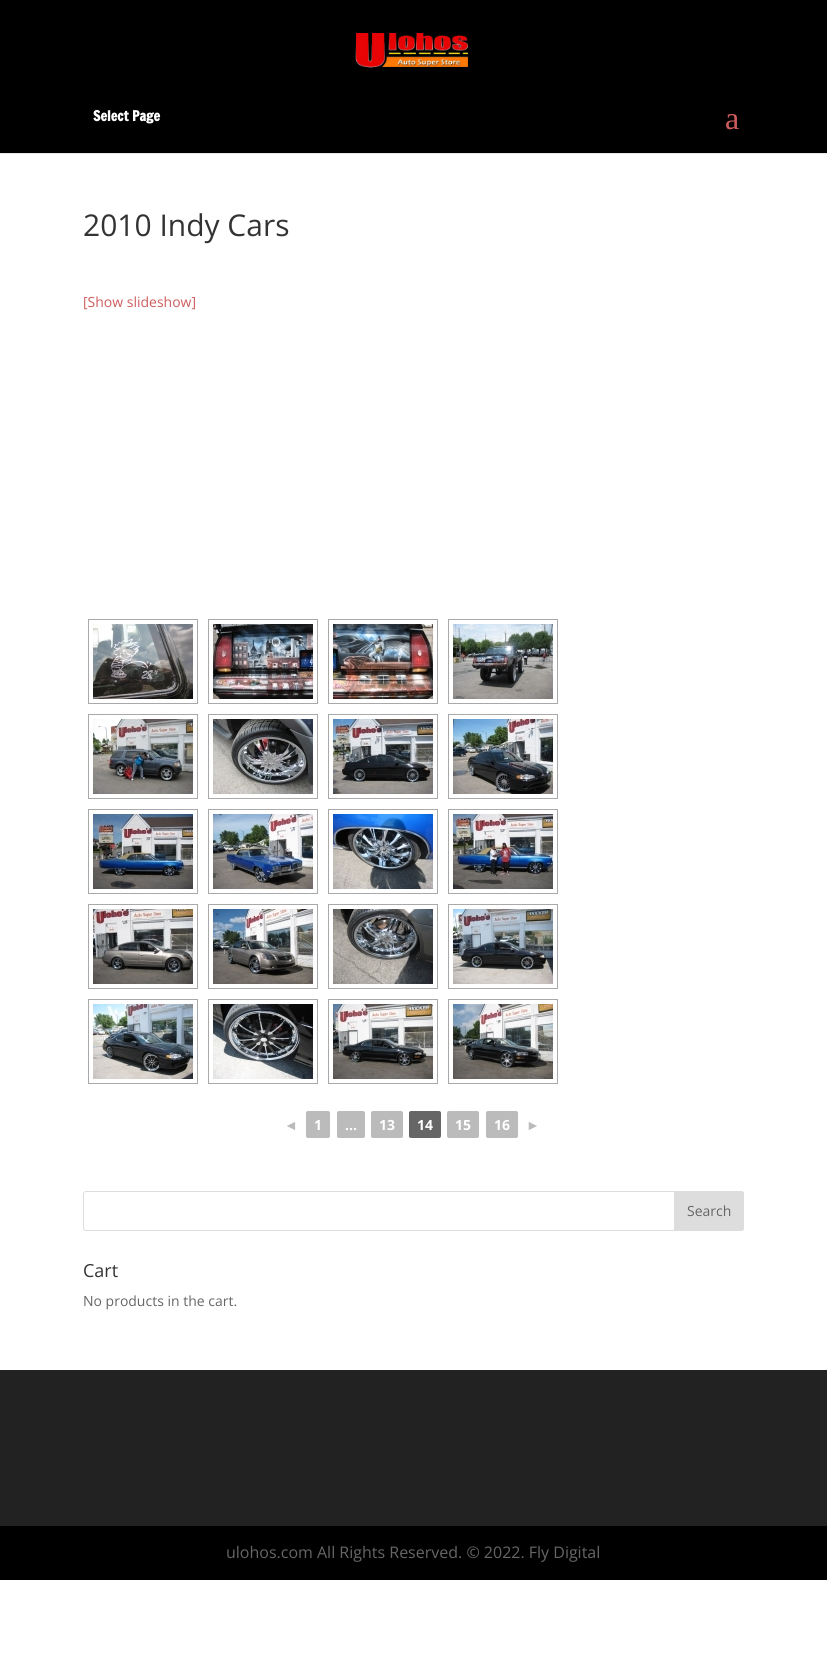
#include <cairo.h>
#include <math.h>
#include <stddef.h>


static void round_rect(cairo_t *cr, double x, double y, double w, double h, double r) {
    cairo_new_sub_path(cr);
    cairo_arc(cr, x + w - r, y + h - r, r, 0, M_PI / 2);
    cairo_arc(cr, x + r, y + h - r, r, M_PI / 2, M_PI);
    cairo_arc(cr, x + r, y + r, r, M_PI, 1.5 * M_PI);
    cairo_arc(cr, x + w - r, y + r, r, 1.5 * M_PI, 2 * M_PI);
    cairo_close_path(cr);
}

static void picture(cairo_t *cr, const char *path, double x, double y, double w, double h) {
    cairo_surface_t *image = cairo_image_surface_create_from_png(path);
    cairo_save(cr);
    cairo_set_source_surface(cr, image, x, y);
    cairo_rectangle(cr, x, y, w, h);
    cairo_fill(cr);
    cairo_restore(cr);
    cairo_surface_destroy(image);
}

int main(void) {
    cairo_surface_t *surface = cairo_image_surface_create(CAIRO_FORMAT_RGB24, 827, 1655);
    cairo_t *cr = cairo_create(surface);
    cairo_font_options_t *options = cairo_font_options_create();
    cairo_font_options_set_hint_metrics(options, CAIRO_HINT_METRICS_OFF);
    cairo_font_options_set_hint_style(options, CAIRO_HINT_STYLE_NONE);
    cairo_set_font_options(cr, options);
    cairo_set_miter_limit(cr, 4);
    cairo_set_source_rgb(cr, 1, 1, 1);
    cairo_paint(cr);
    cairo_set_source_rgb(cr, 0.902, 0.902, 0.902);
    cairo_rectangle(cr, 0, 153, 827, 1);
    cairo_fill(cr);
    cairo_set_source_rgb(cr, 0, 0, 0);
    cairo_rectangle(cr, 0, 0, 827, 153);
    cairo_fill(cr);
    picture(cr, "img1.png", 355, 32, 113, 36);
    cairo_select_font_face(cr, "Francois One", CAIRO_FONT_SLANT_NORMAL, CAIRO_FONT_WEIGHT_BOLD);
    cairo_set_font_size(cr, 14);
    cairo_set_source_rgb(cr, 1, 1, 1);
    cairo_move_to(cr, 93, 121);
    cairo_show_text(cr, "Select Page");
    cairo_select_font_face(cr, "Liberation Serif", CAIRO_FONT_SLANT_NORMAL, CAIRO_FONT_WEIGHT_NORMAL);
    cairo_set_font_size(cr, 32);
    cairo_set_source_rgb(cr, 0.804, 0.361, 0.361);
    cairo_move_to(cr, 725, 129);
    cairo_show_text(cr, "a");
    cairo_select_font_face(cr, "Open Sans", CAIRO_FONT_SLANT_NORMAL, CAIRO_FONT_WEIGHT_NORMAL);
    cairo_set_font_size(cr, 30);
    cairo_set_source_rgb(cr, 0.2, 0.2, 0.2);
    cairo_move_to(cr, 83, 236);
    cairo_show_text(cr, "2010 Indy Cars");
    cairo_set_font_size(cr, 14);
    cairo_set_source_rgb(cr, 0.804, 0.361, 0.361);
    cairo_move_to(cr, 83, 307);
    cairo_show_text(cr, "[Show slideshow]");
    cairo_rectangle(cr, 88.5, 619.5, 109, 84);
    cairo_set_source_rgb(cr, 0.663, 0.663, 0.663);
    cairo_set_line_width(cr, 1);
    cairo_stroke(cr);
    picture(cr, "img2.png", 93, 624, 100, 75);
    cairo_rectangle(cr, 208.5, 619.5, 109, 84);
    cairo_stroke(cr);
    picture(cr, "img3.png", 213, 624, 100, 75);
    cairo_rectangle(cr, 328.5, 619.5, 109, 84);
    cairo_stroke(cr);
    picture(cr, "img4.png", 333, 624, 100, 75);
    cairo_rectangle(cr, 448.5, 619.5, 109, 84);
    cairo_stroke(cr);
    picture(cr, "img5.png", 453, 624, 100, 75);
    cairo_rectangle(cr, 88.5, 714.5, 109, 84);
    cairo_stroke(cr);
    picture(cr, "img6.png", 93, 719, 100, 75);
    cairo_rectangle(cr, 208.5, 714.5, 109, 84);
    cairo_stroke(cr);
    picture(cr, "img7.png", 213, 719, 100, 75);
    cairo_rectangle(cr, 328.5, 714.5, 109, 84);
    cairo_stroke(cr);
    picture(cr, "img8.png", 333, 719, 100, 75);
    cairo_rectangle(cr, 448.5, 714.5, 109, 84);
    cairo_stroke(cr);
    picture(cr, "img9.png", 453, 719, 100, 75);
    cairo_rectangle(cr, 88.5, 809.5, 109, 84);
    cairo_stroke(cr);
    picture(cr, "img10.png", 93, 814, 100, 75);
    cairo_rectangle(cr, 208.5, 809.5, 109, 84);
    cairo_stroke(cr);
    picture(cr, "img11.png", 213, 814, 100, 75);
    cairo_rectangle(cr, 328.5, 809.5, 109, 84);
    cairo_stroke(cr);
    picture(cr, "img12.png", 333, 814, 100, 75);
    cairo_rectangle(cr, 448.5, 809.5, 109, 84);
    cairo_stroke(cr);
    picture(cr, "img13.png", 453, 814, 100, 75);
    cairo_rectangle(cr, 88.5, 904.5, 109, 84);
    cairo_stroke(cr);
    picture(cr, "img14.png", 93, 909, 100, 75);
    cairo_rectangle(cr, 208.5, 904.5, 109, 84);
    cairo_stroke(cr);
    picture(cr, "img15.png", 213, 909, 100, 75);
    cairo_rectangle(cr, 328.5, 904.5, 109, 84);
    cairo_stroke(cr);
    picture(cr, "img16.png", 333, 909, 100, 75);
    cairo_rectangle(cr, 448.5, 904.5, 109, 84);
    cairo_stroke(cr);
    picture(cr, "img17.png", 453, 909, 100, 75);
    cairo_rectangle(cr, 88.5, 999.5, 109, 84);
    cairo_stroke(cr);
    picture(cr, "img18.png", 93, 1004, 100, 75);
    cairo_rectangle(cr, 208.5, 999.5, 109, 84);
    cairo_stroke(cr);
    picture(cr, "img19.png", 213, 1004, 100, 75);
    cairo_rectangle(cr, 328.5, 999.5, 109, 84);
    cairo_stroke(cr);
    picture(cr, "img20.png", 333, 1004, 100, 75);
    cairo_rectangle(cr, 448.5, 999.5, 109, 84);
    cairo_stroke(cr);
    picture(cr, "img21.png", 453, 1004, 100, 75);
    cairo_select_font_face(cr, "Liberation Sans", CAIRO_FONT_SLANT_NORMAL, CAIRO_FONT_WEIGHT_BOLD);
    cairo_set_source_rgb(cr, 0.733, 0.733, 0.733);
    cairo_move_to(cr, 284, 1130);
    cairo_show_text(cr, "◄");
    round_rect(cr, 306, 1111, 24, 27, 2);
    cairo_fill(cr);
    cairo_select_font_face(cr, "Open Sans", CAIRO_FONT_SLANT_NORMAL, CAIRO_FONT_WEIGHT_BOLD);
    cairo_set_source_rgb(cr, 1, 1, 1);
    cairo_move_to(cr, 314, 1130);
    cairo_show_text(cr, "1");
    cairo_set_source_rgb(cr, 0.733, 0.733, 0.733);
    round_rect(cr, 337, 1111, 28, 27, 2);
    cairo_fill(cr);
    cairo_set_source_rgb(cr, 1, 1, 1);
    cairo_move_to(cr, 345, 1130);
    cairo_show_text(cr, "...");
    cairo_set_source_rgb(cr, 0.733, 0.733, 0.733);
    round_rect(cr, 371, 1111, 32, 27, 2);
    cairo_fill(cr);
    cairo_set_source_rgb(cr, 1, 1, 1);
    cairo_move_to(cr, 379, 1130);
    cairo_show_text(cr, "13");
    cairo_set_source_rgb(cr, 0.4, 0.4, 0.4);
    round_rect(cr, 409, 1111, 32, 27, 2);
    cairo_fill(cr);
    cairo_set_source_rgb(cr, 1, 1, 1);
    cairo_move_to(cr, 417, 1130);
    cairo_show_text(cr, "14");
    cairo_set_source_rgb(cr, 0.733, 0.733, 0.733);
    round_rect(cr, 447, 1111, 32, 27, 2);
    cairo_fill(cr);
    cairo_set_source_rgb(cr, 1, 1, 1);
    cairo_move_to(cr, 455, 1130);
    cairo_show_text(cr, "15");
    cairo_set_source_rgb(cr, 0.733, 0.733, 0.733);
    round_rect(cr, 486, 1111, 32, 27, 2);
    cairo_fill(cr);
    cairo_set_source_rgb(cr, 1, 1, 1);
    cairo_move_to(cr, 494, 1130);
    cairo_show_text(cr, "16");
    cairo_select_font_face(cr, "Liberation Sans", CAIRO_FONT_SLANT_NORMAL, CAIRO_FONT_WEIGHT_BOLD);
    cairo_set_source_rgb(cr, 0.733, 0.733, 0.733);
    cairo_move_to(cr, 526, 1130);
    cairo_show_text(cr, "►");
    round_rect(cr, 83.5, 1191.5, 660, 39, 2.5);
    cairo_set_source_rgb(cr, 0.867, 0.867, 0.867);
    cairo_stroke(cr);
    cairo_new_path(cr);
    cairo_move_to(cr, 674.5, 1191.5);
    cairo_line_to(cr, 741, 1191.5);
    cairo_curve_to(cr, 742.5, 1191.5, 743.5, 1192.5, 743.5, 1194);
    cairo_line_to(cr, 743.5, 1228);
    cairo_curve_to(cr, 743.5, 1229.5, 742.5, 1230.5, 741, 1230.5);
    cairo_line_to(cr, 674.5, 1230.5);
    cairo_close_path(cr);
    cairo_fill_preserve(cr);
    cairo_stroke(cr);
    cairo_select_font_face(cr, "Open Sans", CAIRO_FONT_SLANT_NORMAL, CAIRO_FONT_WEIGHT_NORMAL);
    cairo_set_source_rgb(cr, 0.4, 0.4, 0.4);
    cairo_move_to(cr, 687, 1216);
    cairo_show_text(cr, "Search");
    cairo_set_font_size(cr, 18);
    cairo_set_source_rgb(cr, 0.2, 0.2, 0.2);
    cairo_move_to(cr, 83, 1277);
    cairo_show_text(cr, "Cart");
    cairo_set_font_size(cr, 14);
    cairo_set_source_rgb(cr, 0.4, 0.4, 0.4);
    cairo_move_to(cr, 83, 1306);
    cairo_show_text(cr, "No products in the cart.");
    cairo_set_source_rgb(cr, 0.133, 0.133, 0.133);
    cairo_rectangle(cr, 0, 1370, 827, 156);
    cairo_fill(cr);
    cairo_set_source_rgb(cr, 0, 0, 0);
    cairo_rectangle(cr, 0, 1526, 827, 54);
    cairo_fill(cr);
    cairo_set_font_size(cr, 16);
    cairo_set_source_rgb(cr, 0.4, 0.4, 0.4);
    cairo_move_to(cr, 226, 1558);
    cairo_show_text(cr, "ulohos.com All Rights Reserved. © 2022. Fly Digital");
    cairo_surface_write_to_png(surface, "page.png");
    cairo_font_options_destroy(options);
    cairo_destroy(cr);
    cairo_surface_destroy(surface);
    return 0;
}
